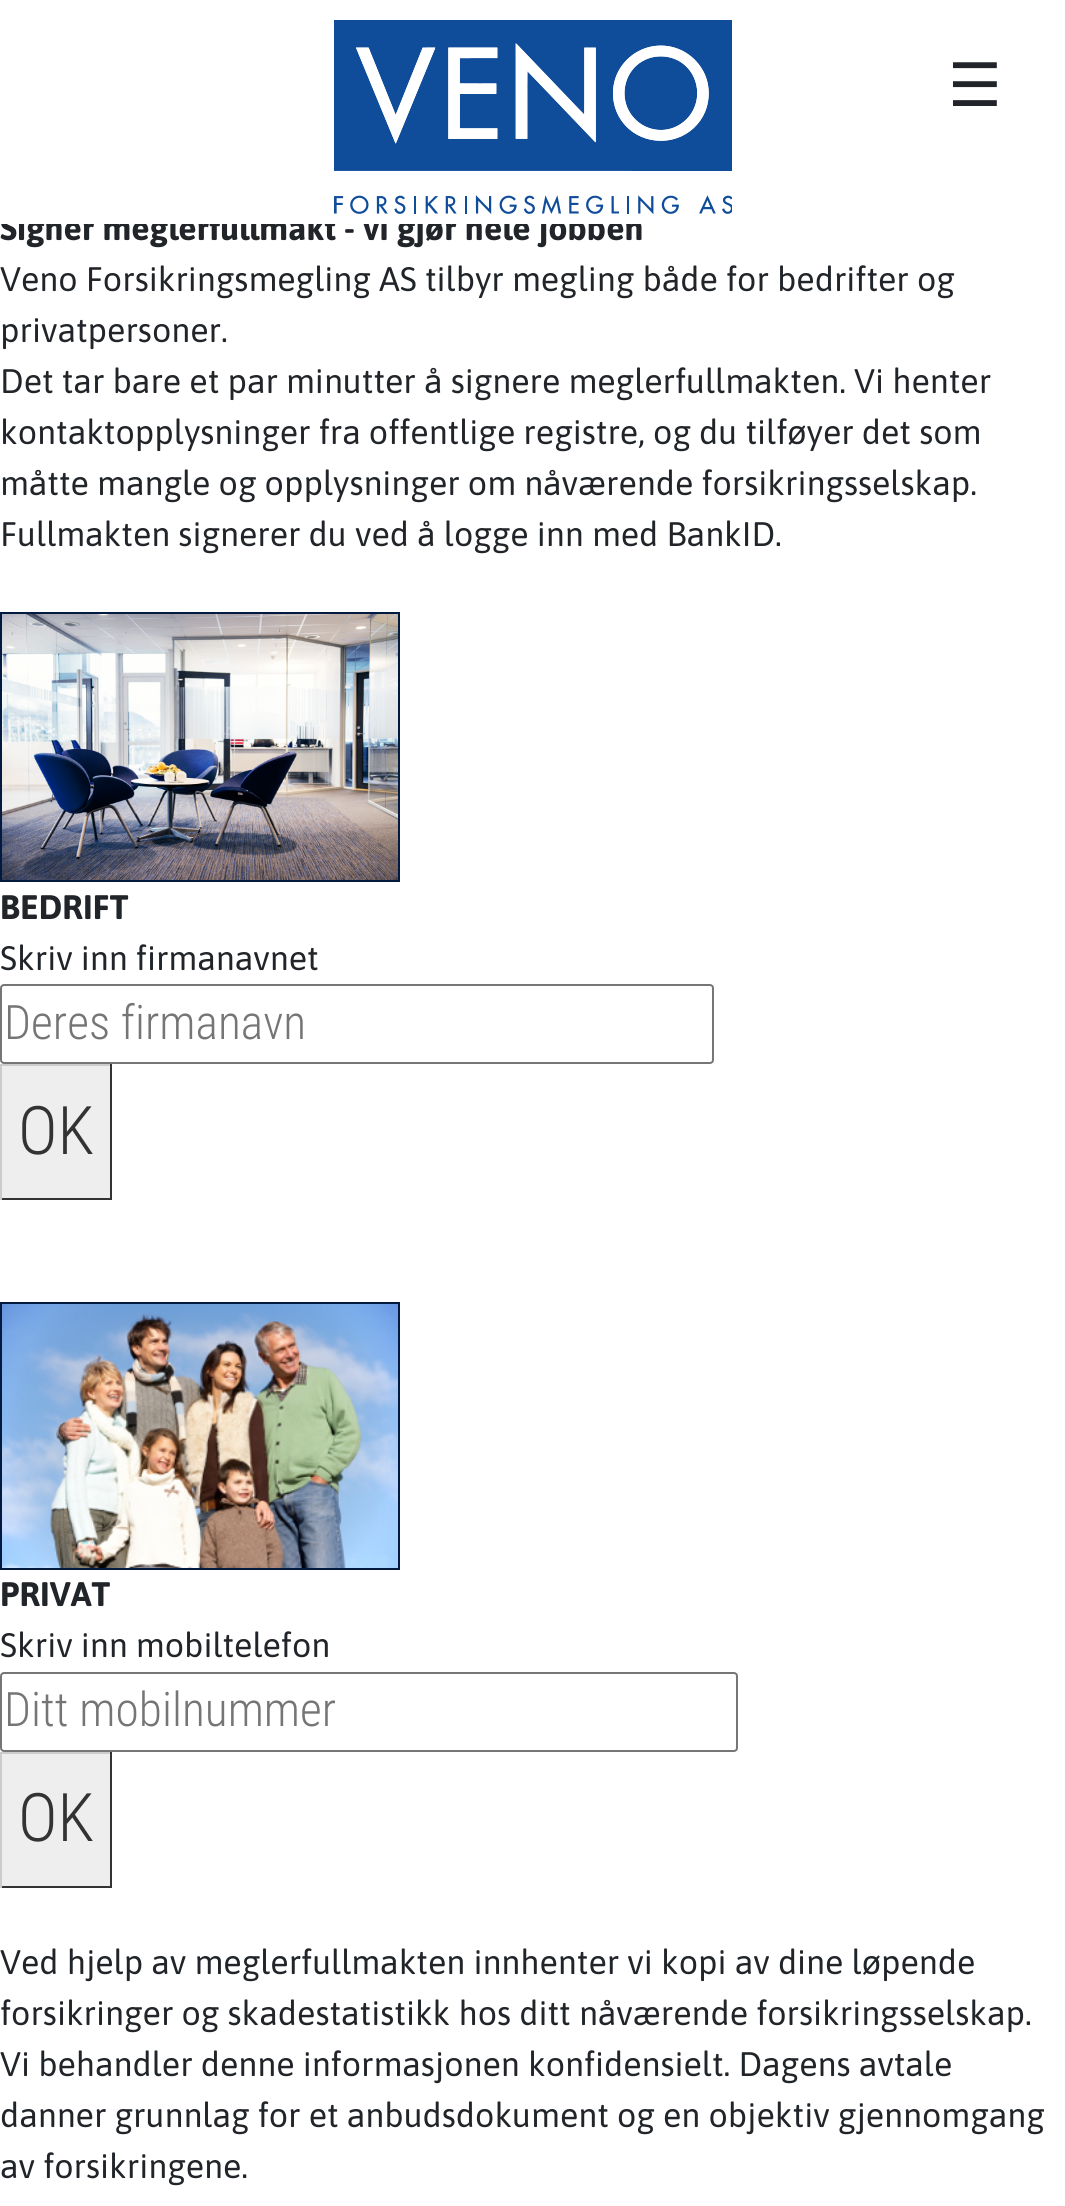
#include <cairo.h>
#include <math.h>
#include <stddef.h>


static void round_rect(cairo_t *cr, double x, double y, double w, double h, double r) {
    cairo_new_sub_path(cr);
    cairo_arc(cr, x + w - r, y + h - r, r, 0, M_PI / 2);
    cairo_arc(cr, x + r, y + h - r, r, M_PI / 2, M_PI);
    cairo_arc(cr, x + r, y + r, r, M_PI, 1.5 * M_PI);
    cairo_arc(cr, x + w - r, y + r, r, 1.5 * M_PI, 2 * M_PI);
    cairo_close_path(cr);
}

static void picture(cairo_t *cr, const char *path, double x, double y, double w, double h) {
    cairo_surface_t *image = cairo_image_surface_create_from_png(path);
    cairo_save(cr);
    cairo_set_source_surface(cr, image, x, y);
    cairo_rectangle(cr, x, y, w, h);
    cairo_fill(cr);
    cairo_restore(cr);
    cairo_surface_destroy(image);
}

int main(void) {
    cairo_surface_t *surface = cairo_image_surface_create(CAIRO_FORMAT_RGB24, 1065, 2206);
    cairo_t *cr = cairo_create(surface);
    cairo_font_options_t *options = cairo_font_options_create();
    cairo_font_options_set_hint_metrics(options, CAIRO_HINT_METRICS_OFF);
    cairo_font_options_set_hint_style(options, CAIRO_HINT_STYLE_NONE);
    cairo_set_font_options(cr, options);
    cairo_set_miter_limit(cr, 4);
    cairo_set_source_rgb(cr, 1, 1, 1);
    cairo_paint(cr);
    cairo_select_font_face(cr, "Asap", CAIRO_FONT_SLANT_NORMAL, CAIRO_FONT_WEIGHT_BOLD);
    cairo_set_font_size(cr, 34);
    cairo_set_source_rgb(cr, 0.129, 0.145, 0.161);
    cairo_move_to(cr, 0, 240);
    cairo_show_text(cr, "Signer meglerfullmakt - vi gjør hele jobben");
    cairo_set_source_rgb(cr, 1, 1, 1);
    cairo_rectangle(cr, 1, 214, 640, 10);
    cairo_fill(cr);
    picture(cr, "img1.png", 334, 20, 398, 195);
    cairo_select_font_face(cr, "DejaVu Sans", CAIRO_FONT_SLANT_NORMAL, CAIRO_FONT_WEIGHT_NORMAL);
    cairo_set_font_size(cr, 60);
    cairo_set_source_rgb(cr, 0.129, 0.145, 0.161);
    cairo_move_to(cr, 948, 106);
    cairo_show_text(cr, "☰");
    cairo_select_font_face(cr, "Asap", CAIRO_FONT_SLANT_NORMAL, CAIRO_FONT_WEIGHT_NORMAL);
    cairo_set_font_size(cr, 34);
    cairo_move_to(cr, 0, 291);
    cairo_show_text(cr, "Veno Forsikringsmegling AS tilbyr megling både for bedrifter og");
    cairo_move_to(cr, 0, 342);
    cairo_show_text(cr, "privatpersoner.");
    cairo_move_to(cr, 0, 393);
    cairo_show_text(cr, "Det tar bare et par minutter å signere meglerfullmakten. Vi henter");
    cairo_move_to(cr, 0, 444);
    cairo_show_text(cr, "kontaktopplysninger fra offentlige registre, og du tilføyer det som");
    cairo_move_to(cr, 0, 495);
    cairo_show_text(cr, "måtte mangle og opplysninger om nåværende forsikringsselskap.");
    cairo_move_to(cr, 0, 546);
    cairo_show_text(cr, "Fullmakten signerer du ved å logge inn med BankID.");
    cairo_rectangle(cr, 1, 613, 398, 268);
    cairo_set_source_rgb(cr, 0.008, 0.102, 0.251);
    cairo_stroke(cr);
    picture(cr, "img2.png", 2, 614, 396, 266);
    cairo_select_font_face(cr, "Asap", CAIRO_FONT_SLANT_NORMAL, CAIRO_FONT_WEIGHT_BOLD);
    cairo_set_source_rgb(cr, 0.129, 0.145, 0.161);
    cairo_move_to(cr, 0, 919);
    cairo_show_text(cr, "BEDRIFT");
    cairo_select_font_face(cr, "Asap", CAIRO_FONT_SLANT_NORMAL, CAIRO_FONT_WEIGHT_NORMAL);
    cairo_move_to(cr, 0, 970);
    cairo_show_text(cr, "Skriv inn firmanavnet");
    round_rect(cr, 1, 985, 712, 78, 3);
    cairo_set_source_rgb(cr, 0.463, 0.463, 0.463);
    cairo_stroke(cr);
    cairo_select_font_face(cr, "Roboto Condensed Light", CAIRO_FONT_SLANT_NORMAL, CAIRO_FONT_WEIGHT_NORMAL);
    cairo_set_font_size(cr, 47.5);
    cairo_set_source_rgb(cr, 0.459, 0.459, 0.459);
    cairo_move_to(cr, 4, 1039);
    cairo_show_text(cr, "Deres firmanavn");
    cairo_set_source_rgb(cr, 0.933, 0.933, 0.933);
    cairo_rectangle(cr, 2, 1066, 108, 132);
    cairo_fill(cr);
    cairo_set_source_rgb(cr, 0.8, 0.8, 0.8);
    cairo_rectangle(cr, 0, 1064, 112, 2);
    cairo_fill(cr);
    cairo_set_source_rgb(cr, 0.2, 0.2, 0.2);
    cairo_rectangle(cr, 110, 1064, 2, 136);
    cairo_fill(cr);
    cairo_rectangle(cr, 0, 1198, 112, 2);
    cairo_fill(cr);
    cairo_set_source_rgb(cr, 0.8, 0.8, 0.8);
    cairo_rectangle(cr, 0, 1064, 2, 136);
    cairo_fill(cr);
    cairo_set_font_size(cr, 67);
    cairo_set_source_rgb(cr, 0.2, 0.2, 0.2);
    cairo_move_to(cr, 18, 1154);
    cairo_show_text(cr, "OK");
    cairo_rectangle(cr, 1, 1303, 398, 266);
    cairo_set_source_rgb(cr, 0.008, 0.102, 0.251);
    cairo_stroke(cr);
    picture(cr, "img3.png", 2, 1304, 396, 264);
    cairo_select_font_face(cr, "Asap", CAIRO_FONT_SLANT_NORMAL, CAIRO_FONT_WEIGHT_BOLD);
    cairo_set_font_size(cr, 34);
    cairo_set_source_rgb(cr, 0.129, 0.145, 0.161);
    cairo_move_to(cr, 0, 1606);
    cairo_show_text(cr, "PRIVAT");
    cairo_select_font_face(cr, "Asap", CAIRO_FONT_SLANT_NORMAL, CAIRO_FONT_WEIGHT_NORMAL);
    cairo_move_to(cr, 0, 1657);
    cairo_show_text(cr, "Skriv inn mobiltelefon");
    round_rect(cr, 1, 1673, 736, 78, 3);
    cairo_set_source_rgb(cr, 0.463, 0.463, 0.463);
    cairo_stroke(cr);
    cairo_select_font_face(cr, "Roboto Condensed Light", CAIRO_FONT_SLANT_NORMAL, CAIRO_FONT_WEIGHT_NORMAL);
    cairo_set_font_size(cr, 47.5);
    cairo_set_source_rgb(cr, 0.459, 0.459, 0.459);
    cairo_move_to(cr, 4, 1726);
    cairo_show_text(cr, "Ditt mobilnummer");
    cairo_set_source_rgb(cr, 0.933, 0.933, 0.933);
    cairo_rectangle(cr, 2, 1754, 108, 132);
    cairo_fill(cr);
    cairo_set_source_rgb(cr, 0.8, 0.8, 0.8);
    cairo_rectangle(cr, 0, 1752, 112, 2);
    cairo_fill(cr);
    cairo_set_source_rgb(cr, 0.2, 0.2, 0.2);
    cairo_rectangle(cr, 110, 1752, 2, 136);
    cairo_fill(cr);
    cairo_rectangle(cr, 0, 1886, 112, 2);
    cairo_fill(cr);
    cairo_set_source_rgb(cr, 0.8, 0.8, 0.8);
    cairo_rectangle(cr, 0, 1752, 2, 136);
    cairo_fill(cr);
    cairo_set_font_size(cr, 67);
    cairo_set_source_rgb(cr, 0.2, 0.2, 0.2);
    cairo_move_to(cr, 18, 1841);
    cairo_show_text(cr, "OK");
    cairo_select_font_face(cr, "Asap", CAIRO_FONT_SLANT_NORMAL, CAIRO_FONT_WEIGHT_NORMAL);
    cairo_set_font_size(cr, 34);
    cairo_set_source_rgb(cr, 0.129, 0.145, 0.161);
    cairo_move_to(cr, 0, 1974);
    cairo_show_text(cr, "Ved hjelp av meglerfullmakten innhenter vi kopi av dine løpende");
    cairo_move_to(cr, 0, 2025);
    cairo_show_text(cr, "forsikringer og skadestatistikk hos ditt nåværende forsikringsselskap.");
    cairo_move_to(cr, 0, 2076);
    cairo_show_text(cr, "Vi behandler denne informasjonen konfidensielt. Dagens avtale");
    cairo_move_to(cr, 0, 2127);
    cairo_show_text(cr, "danner grunnlag for et anbudsdokument og en objektiv gjennomgang");
    cairo_move_to(cr, 0, 2178);
    cairo_show_text(cr, "av forsikringene.");
    cairo_surface_write_to_png(surface, "page.png");
    cairo_font_options_destroy(options);
    cairo_destroy(cr);
    cairo_surface_destroy(surface);
    return 0;
}
